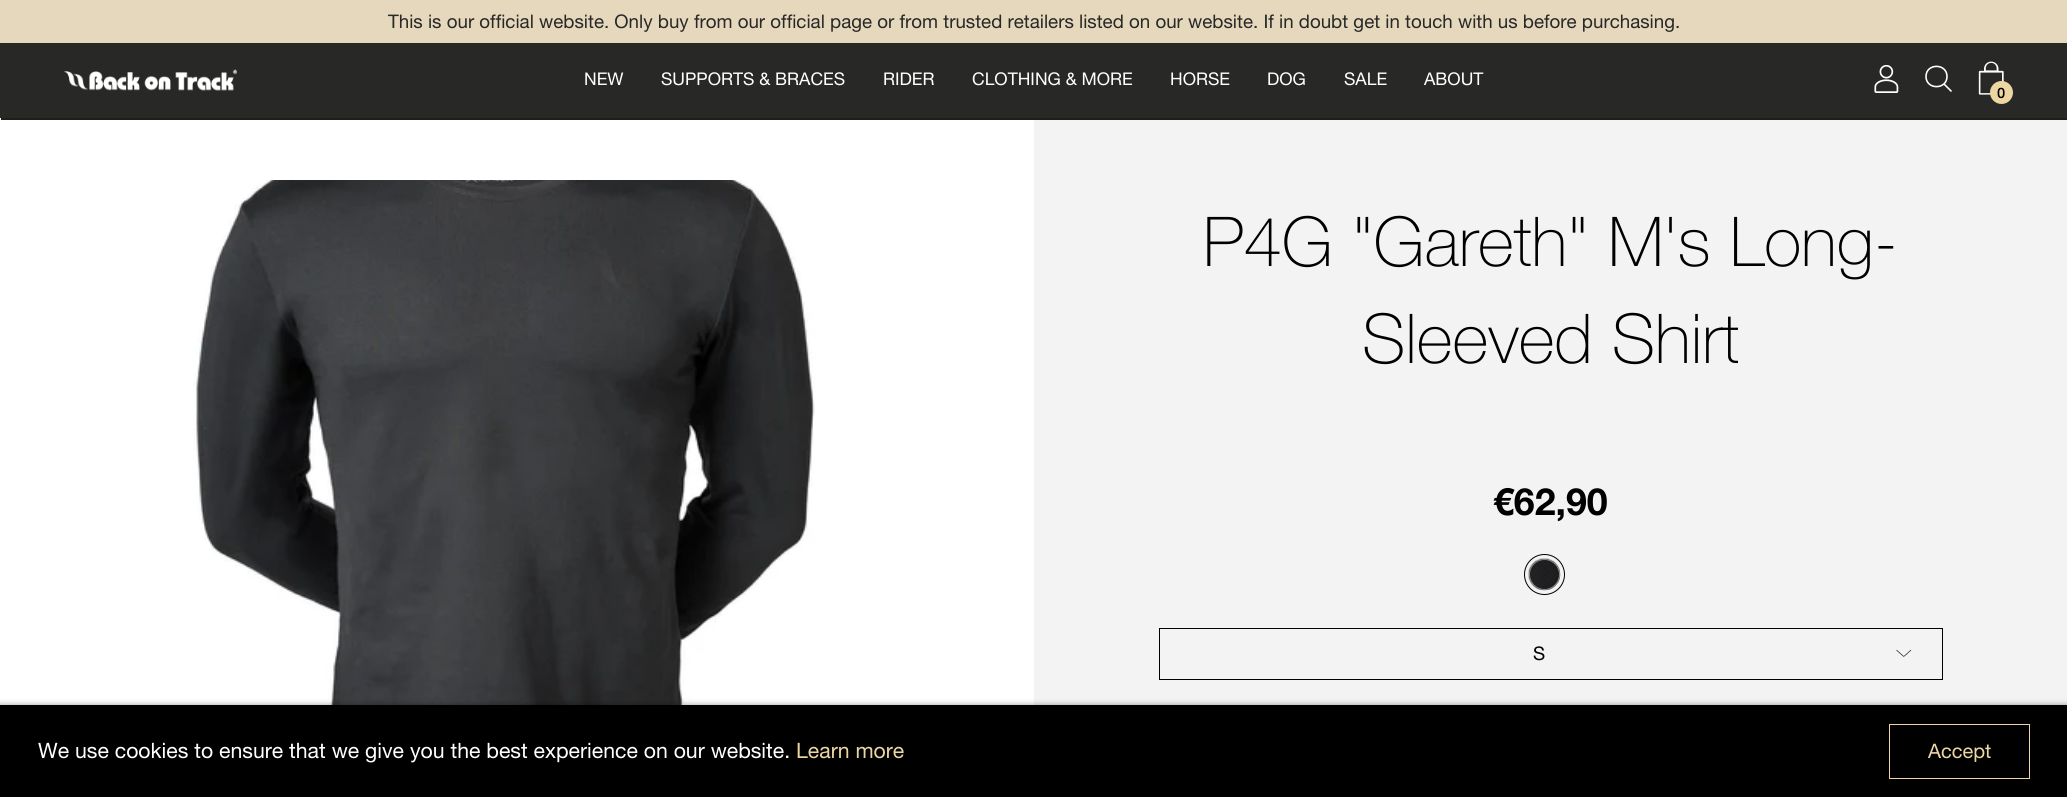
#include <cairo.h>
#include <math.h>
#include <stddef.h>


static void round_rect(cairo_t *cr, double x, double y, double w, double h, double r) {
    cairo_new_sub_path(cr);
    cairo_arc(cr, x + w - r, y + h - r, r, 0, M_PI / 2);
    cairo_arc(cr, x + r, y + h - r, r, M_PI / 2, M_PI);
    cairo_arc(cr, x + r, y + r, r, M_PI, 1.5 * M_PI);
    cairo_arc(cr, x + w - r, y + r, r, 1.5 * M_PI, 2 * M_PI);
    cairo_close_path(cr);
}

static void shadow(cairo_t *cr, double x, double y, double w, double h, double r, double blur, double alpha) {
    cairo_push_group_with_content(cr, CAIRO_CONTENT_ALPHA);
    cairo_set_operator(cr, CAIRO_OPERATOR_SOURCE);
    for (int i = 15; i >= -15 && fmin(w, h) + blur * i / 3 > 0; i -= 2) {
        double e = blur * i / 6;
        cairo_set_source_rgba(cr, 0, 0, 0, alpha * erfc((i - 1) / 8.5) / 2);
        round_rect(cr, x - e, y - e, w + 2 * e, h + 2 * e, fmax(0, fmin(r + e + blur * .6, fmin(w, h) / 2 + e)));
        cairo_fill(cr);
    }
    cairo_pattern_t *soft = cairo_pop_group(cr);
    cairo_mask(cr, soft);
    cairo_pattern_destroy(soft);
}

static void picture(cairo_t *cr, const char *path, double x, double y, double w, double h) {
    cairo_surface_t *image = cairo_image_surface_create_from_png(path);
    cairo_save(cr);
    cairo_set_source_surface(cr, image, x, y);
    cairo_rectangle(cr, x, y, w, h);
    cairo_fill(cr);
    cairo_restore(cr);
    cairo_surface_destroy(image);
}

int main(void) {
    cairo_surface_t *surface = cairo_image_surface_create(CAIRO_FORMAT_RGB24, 2067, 797);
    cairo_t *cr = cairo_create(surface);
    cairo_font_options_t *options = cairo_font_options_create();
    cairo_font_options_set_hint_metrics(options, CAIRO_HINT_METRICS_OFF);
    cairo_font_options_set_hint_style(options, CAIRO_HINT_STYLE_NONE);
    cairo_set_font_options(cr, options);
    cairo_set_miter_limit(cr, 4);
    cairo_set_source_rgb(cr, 0.157, 0.157, 0.153);
    cairo_paint(cr);
    cairo_set_source_rgb(cr, 0.898, 0.847, 0.741);
    cairo_rectangle(cr, 0, 0, 2067, 43);
    cairo_fill(cr);
    cairo_select_font_face(cr, "Helvetica Neue", CAIRO_FONT_SLANT_NORMAL, CAIRO_FONT_WEIGHT_NORMAL);
    cairo_set_font_size(cr, 18.75);
    cairo_set_source_rgb(cr, 0.157, 0.157, 0.153);
    cairo_move_to(cr, 388, 28);
    cairo_show_text(cr, "This is our official website. Only buy from our official page or from trusted retailers listed on our website. If in doubt get in touch with us before purchasing.");
    cairo_set_source_rgb(cr, 1, 1, 1);
    cairo_rectangle(cr, 0, 118, 1034, 587);
    cairo_fill(cr);
    cairo_set_source_rgb(cr, 0.118, 0.118, 0.114);
    cairo_new_path(cr);
    cairo_move_to(cr, 1, 118);
    cairo_line_to(cr, 1, 120);
    cairo_line_to(cr, 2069, 120);
    cairo_line_to(cr, 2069, 45);
    cairo_line_to(cr, 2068, 45);
    cairo_line_to(cr, 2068, 118);
    cairo_close_path(cr);
    cairo_fill(cr);
    picture(cr, "img1.png", 63, 69, 174, 22);
    cairo_set_font_size(cr, 17.5);
    cairo_set_source_rgb(cr, 1, 1, 1);
    cairo_move_to(cr, 584, 85);
    cairo_show_text(cr, "NEW");
    cairo_move_to(cr, 661, 85);
    cairo_show_text(cr, "SUPPORTS & BRACES");
    cairo_move_to(cr, 883, 85);
    cairo_show_text(cr, "RIDER");
    cairo_move_to(cr, 972, 85);
    cairo_show_text(cr, "CLOTHING & MORE");
    cairo_move_to(cr, 1170, 85);
    cairo_show_text(cr, "HORSE");
    cairo_move_to(cr, 1267, 85);
    cairo_show_text(cr, "DOG");
    cairo_move_to(cr, 1344, 85);
    cairo_show_text(cr, "SALE");
    cairo_move_to(cr, 1424, 85);
    cairo_show_text(cr, "ABOUT");
    picture(cr, "img2.png", 1874, 65, 25, 28);
    cairo_new_path(cr);
    cairo_move_to(cr, 1947, 76.5);
    cairo_curve_to(cr, 1947, 90, 1926, 90, 1926, 76.5);
    cairo_curve_to(cr, 1926, 63, 1947, 63, 1947, 76.5);
    cairo_close_path(cr);
    cairo_move_to(cr, 1944, 84);
    cairo_line_to(cr, 1951.5, 91.5);
    cairo_set_line_width(cr, 1.6);
    cairo_stroke(cr);
    picture(cr, "img3.png", 1978, 61, 26, 34);
    cairo_set_source_rgb(cr, 0.925, 0.843, 0.639);
    cairo_arc(cr, 2001.5, 92.5, 11.5, 0, 2 * M_PI);
    cairo_fill(cr);
    cairo_select_font_face(cr, "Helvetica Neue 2", CAIRO_FONT_SLANT_NORMAL, CAIRO_FONT_WEIGHT_BOLD);
    cairo_set_font_size(cr, 14);
    cairo_set_source_rgb(cr, 0, 0, 0);
    cairo_move_to(cr, 1997, 98);
    cairo_show_text(cr, "0");
    picture(cr, "img4.png", 193, 180, 622, 525);
    cairo_set_source_rgb(cr, 0.953, 0.953, 0.953);
    cairo_rectangle(cr, 1034, 120, 1033, 585);
    cairo_fill(cr);
    cairo_select_font_face(cr, "Helvetica Neue Thin", CAIRO_FONT_SLANT_NORMAL, CAIRO_FONT_WEIGHT_NORMAL);
    cairo_set_font_size(cr, 68.75);
    cairo_set_source_rgb(cr, 0, 0, 0);
    cairo_move_to(cr, 1203, 266);
    cairo_show_text(cr, "P4G \"Gareth\" M's Long-");
    cairo_move_to(cr, 1362, 363);
    cairo_show_text(cr, "Sleeved Shirt");
    cairo_select_font_face(cr, "Helvetica Neue", CAIRO_FONT_SLANT_NORMAL, CAIRO_FONT_WEIGHT_BOLD);
    cairo_set_font_size(cr, 37.5);
    cairo_move_to(cr, 1493, 515);
    cairo_show_text(cr, "€62,90");
    picture(cr, "img5.png", 1528, 558, 33, 33);
    cairo_arc(cr, 1544.5, 574.5, 15, 0, 2 * M_PI);
    cairo_set_source_rgb(cr, 0.533, 0.533, 0.533);
    cairo_set_line_width(cr, 1);
    cairo_stroke(cr);
    cairo_arc(cr, 1544.5, 574.5, 20, 0, 2 * M_PI);
    cairo_set_source_rgb(cr, 0, 0, 0);
    cairo_stroke(cr);
    picture(cr, "img6.png", 1896, 649, 16, 8);
    cairo_rectangle(cr, 1159.5, 628.5, 783, 51);
    cairo_stroke(cr);
    cairo_select_font_face(cr, "Helvetica Neue", CAIRO_FONT_SLANT_NORMAL, CAIRO_FONT_WEIGHT_NORMAL);
    cairo_set_font_size(cr, 18.75);
    cairo_move_to(cr, 1533, 660);
    cairo_show_text(cr, "S");
    cairo_set_source_rgb(cr, 0, 0, 0);
    shadow(cr, 0, 705, 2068, 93, 0, 3, 0.4);
    cairo_set_source_rgb(cr, 0, 0, 0);
    cairo_rectangle(cr, 0, 705, 2067, 92);
    cairo_fill(cr);
    cairo_set_font_size(cr, 21.25);
    cairo_set_source_rgb(cr, 1, 1, 1);
    cairo_move_to(cr, 38, 758);
    cairo_show_text(cr, "We use cookies to ensure that we give you the best experience on our website.");
    cairo_set_source_rgb(cr, 0.925, 0.843, 0.639);
    cairo_move_to(cr, 796, 758);
    cairo_show_text(cr, "Learn more");
    cairo_rectangle(cr, 1889.5, 724.5, 140, 54);
    cairo_stroke(cr);
    cairo_set_font_size(cr, 20);
    cairo_move_to(cr, 1928, 758);
    cairo_show_text(cr, "Accept");
    cairo_surface_write_to_png(surface, "page.png");
    cairo_font_options_destroy(options);
    cairo_destroy(cr);
    cairo_surface_destroy(surface);
    return 0;
}
